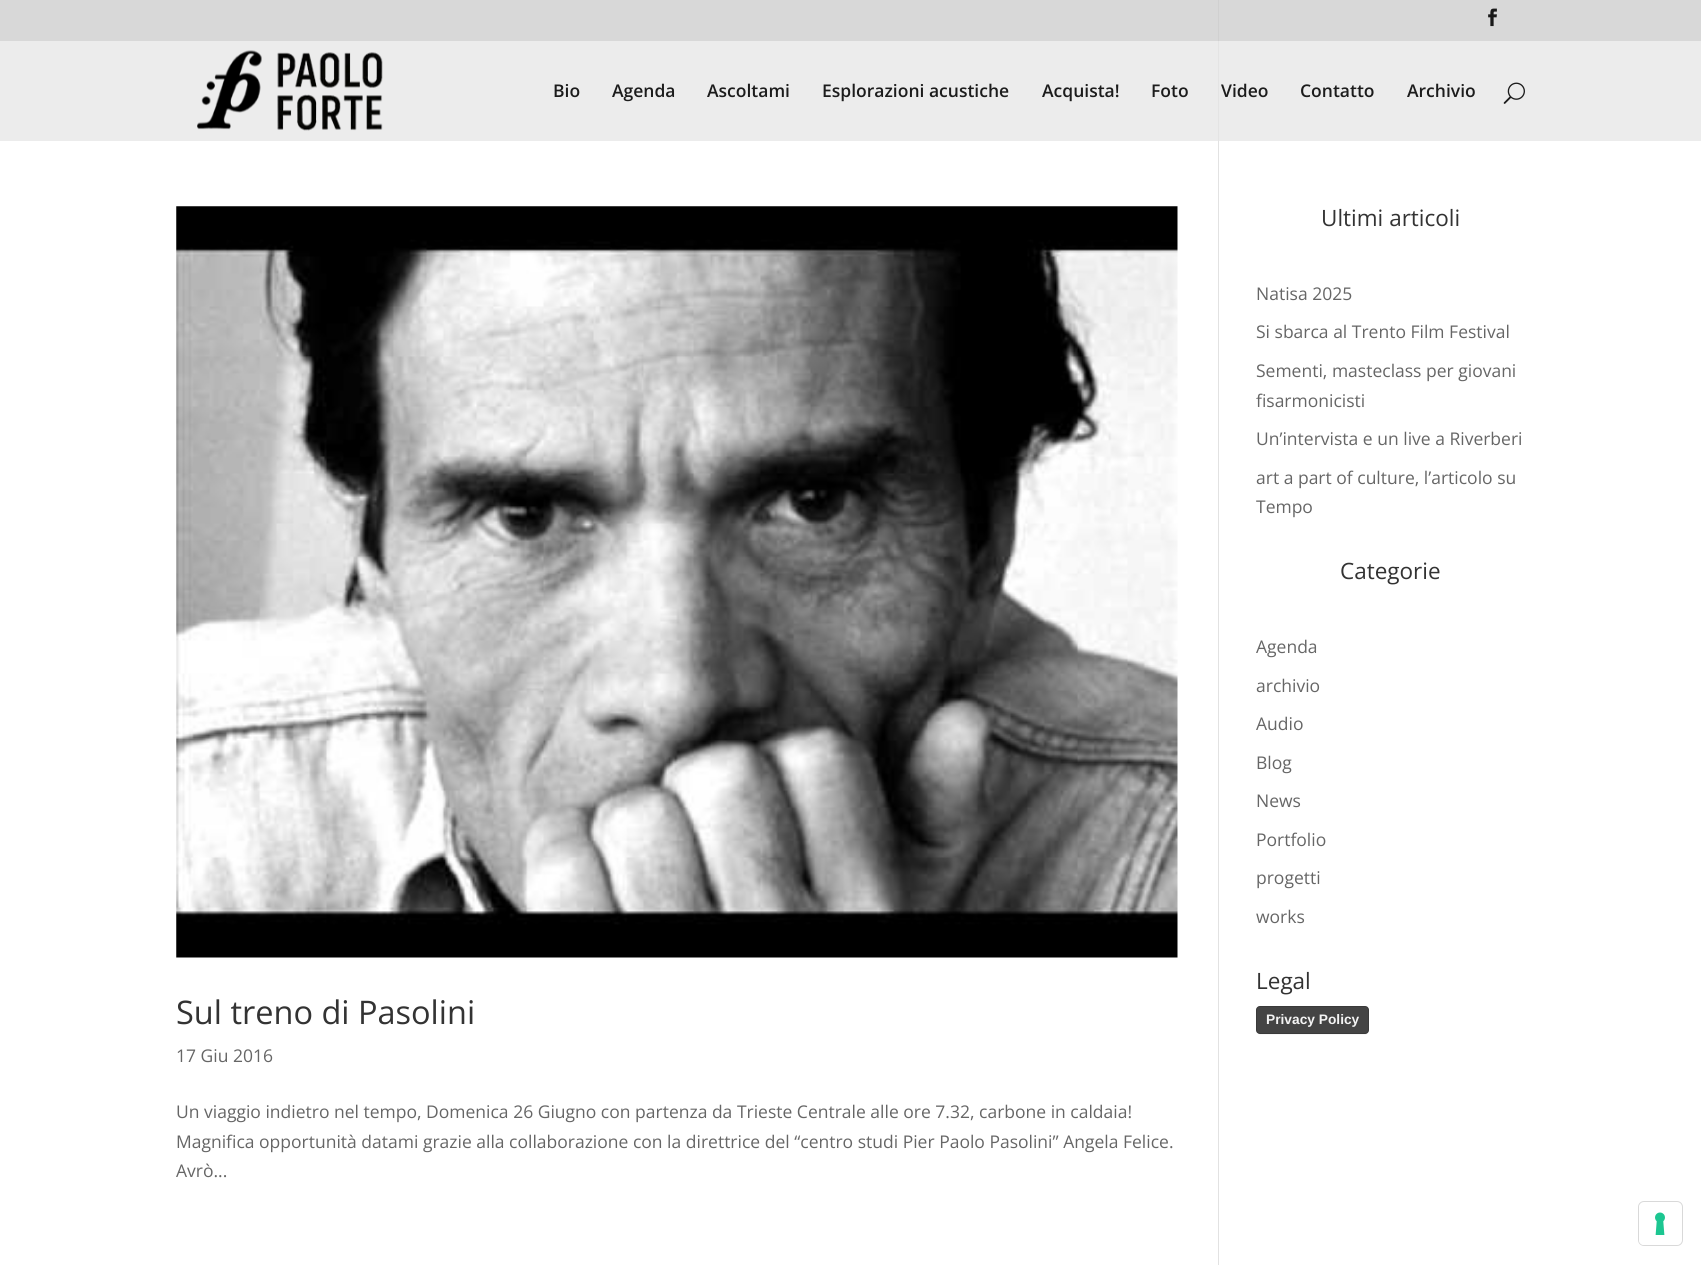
#include <cairo.h>
#include <math.h>
#include <stddef.h>


static void round_rect(cairo_t *cr, double x, double y, double w, double h, double r) {
    cairo_new_sub_path(cr);
    cairo_arc(cr, x + w - r, y + h - r, r, 0, M_PI / 2);
    cairo_arc(cr, x + r, y + h - r, r, M_PI / 2, M_PI);
    cairo_arc(cr, x + r, y + r, r, M_PI, 1.5 * M_PI);
    cairo_arc(cr, x + w - r, y + r, r, 1.5 * M_PI, 2 * M_PI);
    cairo_close_path(cr);
}

static void shadow(cairo_t *cr, double x, double y, double w, double h, double r, double blur, double alpha) {
    cairo_push_group_with_content(cr, CAIRO_CONTENT_ALPHA);
    cairo_set_operator(cr, CAIRO_OPERATOR_SOURCE);
    for (int i = 15; i >= -15 && fmin(w, h) + blur * i / 3 > 0; i -= 2) {
        double e = blur * i / 6;
        cairo_set_source_rgba(cr, 0, 0, 0, alpha * erfc((i - 1) / 8.5) / 2);
        round_rect(cr, x - e, y - e, w + 2 * e, h + 2 * e, fmax(0, fmin(r + e + blur * .6, fmin(w, h) / 2 + e)));
        cairo_fill(cr);
    }
    cairo_pattern_t *soft = cairo_pop_group(cr);
    cairo_mask(cr, soft);
    cairo_pattern_destroy(soft);
}

static void picture(cairo_t *cr, const char *path, double x, double y, double w, double h) {
    cairo_surface_t *image = cairo_image_surface_create_from_png(path);
    cairo_save(cr);
    cairo_set_source_surface(cr, image, x, y);
    cairo_rectangle(cr, x, y, w, h);
    cairo_fill(cr);
    cairo_restore(cr);
    cairo_surface_destroy(image);
}

int main(void) {
    cairo_surface_t *surface = cairo_image_surface_create(CAIRO_FORMAT_RGB24, 1701, 1265);
    cairo_t *cr = cairo_create(surface);
    cairo_font_options_t *options = cairo_font_options_create();
    cairo_font_options_set_hint_metrics(options, CAIRO_HINT_METRICS_OFF);
    cairo_font_options_set_hint_style(options, CAIRO_HINT_STYLE_NONE);
    cairo_set_font_options(cr, options);
    cairo_set_miter_limit(cr, 4);
    cairo_set_source_rgb(cr, 1, 1, 1);
    cairo_paint(cr);
    cairo_set_source_rgb(cr, 0.847, 0.847, 0.847);
    cairo_rectangle(cr, 0, 0, 1701, 41);
    cairo_fill(cr);
    picture(cr, "img1.png", 1488, 8, 9, 19);
    cairo_set_source_rgb(cr, 0.922, 0.922, 0.922);
    cairo_rectangle(cr, 0, 41, 1701, 100);
    cairo_fill(cr);
    picture(cr, "img2.png", 197, 50, 186, 81);
    cairo_select_font_face(cr, "Open Sans SemiBold", CAIRO_FONT_SLANT_NORMAL, CAIRO_FONT_WEIGHT_NORMAL);
    cairo_set_font_size(cr, 17.5);
    cairo_set_source_rgb(cr, 0.11, 0.11, 0.11);
    cairo_move_to(cr, 553, 97);
    cairo_show_text(cr, "Bio");
    cairo_move_to(cr, 612, 97);
    cairo_show_text(cr, "Agenda");
    cairo_move_to(cr, 707, 97);
    cairo_show_text(cr, "Ascoltami");
    cairo_move_to(cr, 822, 97);
    cairo_show_text(cr, "Esplorazioni acustiche");
    cairo_move_to(cr, 1042, 97);
    cairo_show_text(cr, "Acquista!");
    cairo_move_to(cr, 1151, 97);
    cairo_show_text(cr, "Foto");
    cairo_move_to(cr, 1221, 97);
    cairo_show_text(cr, "Video");
    cairo_move_to(cr, 1300, 97);
    cairo_show_text(cr, "Contatto");
    cairo_move_to(cr, 1407, 97);
    cairo_show_text(cr, "Archivio");
    picture(cr, "img3.png", 1503, 82, 22, 22);
    cairo_set_source_rgb(cr, 0.886, 0.886, 0.886);
    cairo_rectangle(cr, 1218, 141, 1, 1124);
    cairo_fill(cr);
    cairo_set_source_rgb(cr, 0.816, 0.816, 0.816);
    cairo_rectangle(cr, 1218, 0, 1, 41);
    cairo_fill(cr);
    cairo_set_source_rgb(cr, 0.894, 0.894, 0.894);
    cairo_rectangle(cr, 1218, 41, 1, 100);
    cairo_fill(cr);
    cairo_select_font_face(cr, "Open Sans", CAIRO_FONT_SLANT_NORMAL, CAIRO_FONT_WEIGHT_NORMAL);
    cairo_set_font_size(cr, 22.5);
    cairo_set_source_rgb(cr, 0.2, 0.2, 0.2);
    cairo_move_to(cr, 1321, 226);
    cairo_show_text(cr, "Ultimi articoli");
    cairo_set_font_size(cr, 17.5);
    cairo_set_source_rgb(cr, 0.4, 0.4, 0.4);
    cairo_move_to(cr, 1256, 300);
    cairo_show_text(cr, "Natisa 2025");
    cairo_move_to(cr, 1256, 338);
    cairo_show_text(cr, "Si sbarca al Trento Film Festival");
    cairo_move_to(cr, 1256, 377);
    cairo_show_text(cr, "Sementi, masteclass per giovani");
    cairo_move_to(cr, 1256, 407);
    cairo_show_text(cr, "fisarmonicisti");
    cairo_move_to(cr, 1256, 445);
    cairo_show_text(cr, "Un’intervista e un live a Riverberi");
    cairo_move_to(cr, 1256, 484);
    cairo_show_text(cr, "art a part of culture, l’articolo su");
    cairo_move_to(cr, 1256, 513);
    cairo_show_text(cr, "Tempo");
    cairo_set_font_size(cr, 22.5);
    cairo_set_source_rgb(cr, 0.2, 0.2, 0.2);
    cairo_move_to(cr, 1340, 579);
    cairo_show_text(cr, "Categorie");
    cairo_set_font_size(cr, 17.5);
    cairo_set_source_rgb(cr, 0.4, 0.4, 0.4);
    cairo_move_to(cr, 1256, 653);
    cairo_show_text(cr, "Agenda");
    cairo_move_to(cr, 1256, 692);
    cairo_show_text(cr, "archivio");
    cairo_move_to(cr, 1256, 730);
    cairo_show_text(cr, "Audio");
    cairo_move_to(cr, 1256, 769);
    cairo_show_text(cr, "Blog");
    cairo_move_to(cr, 1256, 807);
    cairo_show_text(cr, "News");
    cairo_move_to(cr, 1256, 846);
    cairo_show_text(cr, "Portfolio");
    cairo_move_to(cr, 1256, 884);
    cairo_show_text(cr, "progetti");
    cairo_move_to(cr, 1256, 923);
    cairo_show_text(cr, "works");
    cairo_set_font_size(cr, 22.5);
    cairo_set_source_rgb(cr, 0.2, 0.2, 0.2);
    cairo_move_to(cr, 1256, 989);
    cairo_show_text(cr, "Legal");
    cairo_set_source_rgb(cr, 0, 0, 0);
    shadow(cr, 1258, 1009, 110, 25, 2.5, 0.5, 0.15);
    cairo_set_source_rgb(cr, 0.267, 0.267, 0.267);
    round_rect(cr, 1256, 1006, 113, 28, 4);
    cairo_fill(cr);
    round_rect(cr, 1256.5, 1006.5, 112, 27, 3.5);
    cairo_set_source_rgba(cr, 0, 0, 0, 0.15);
    cairo_set_line_width(cr, 1);
    cairo_stroke(cr);
    cairo_select_font_face(cr, "Liberation Sans", CAIRO_FONT_SLANT_NORMAL, CAIRO_FONT_WEIGHT_BOLD);
    cairo_set_font_size(cr, 13.75);
    cairo_set_source_rgb(cr, 0.957, 0.957, 0.957);
    cairo_move_to(cr, 1266, 1024);
    cairo_show_text(cr, "Privacy Policy");
    picture(cr, "img4.png", 176, 206, 1002, 752);
    cairo_select_font_face(cr, "Open Sans", CAIRO_FONT_SLANT_NORMAL, CAIRO_FONT_WEIGHT_NORMAL);
    cairo_set_font_size(cr, 32.5);
    cairo_set_source_rgb(cr, 0.2, 0.2, 0.2);
    cairo_move_to(cr, 176, 1024);
    cairo_show_text(cr, "Sul treno di Pasolini");
    cairo_set_font_size(cr, 17.5);
    cairo_set_source_rgb(cr, 0.4, 0.4, 0.4);
    cairo_move_to(cr, 176, 1062);
    cairo_show_text(cr, "17 Giu 2016");
    cairo_move_to(cr, 176, 1118);
    cairo_show_text(cr, "Un viaggio indietro nel tempo, Domenica 26 Giugno con partenza da Trieste Centrale alle ore 7.32, carbone in caldaia!");
    cairo_move_to(cr, 176, 1148);
    cairo_show_text(cr, "Magnifica opportunità datami grazie alla collaborazione con la direttrice del “centro studi Pier Paolo Pasolini” Angela Felice.");
    cairo_move_to(cr, 176, 1177);
    cairo_show_text(cr, "Avrò...");
    round_rect(cr, 1638.5, 1201.5, 44, 44, 5.5);
    cairo_set_source_rgb(cr, 0.851, 0.851, 0.851);
    cairo_stroke(cr);
    cairo_set_source_rgb(cr, 1, 1, 1);
    round_rect(cr, 1639, 1203, 42, 42, 5);
    cairo_fill(cr);
    picture(cr, "img5.png", 1655, 1212, 10, 23);
    cairo_surface_write_to_png(surface, "page.png");
    cairo_font_options_destroy(options);
    cairo_destroy(cr);
    cairo_surface_destroy(surface);
    return 0;
}
